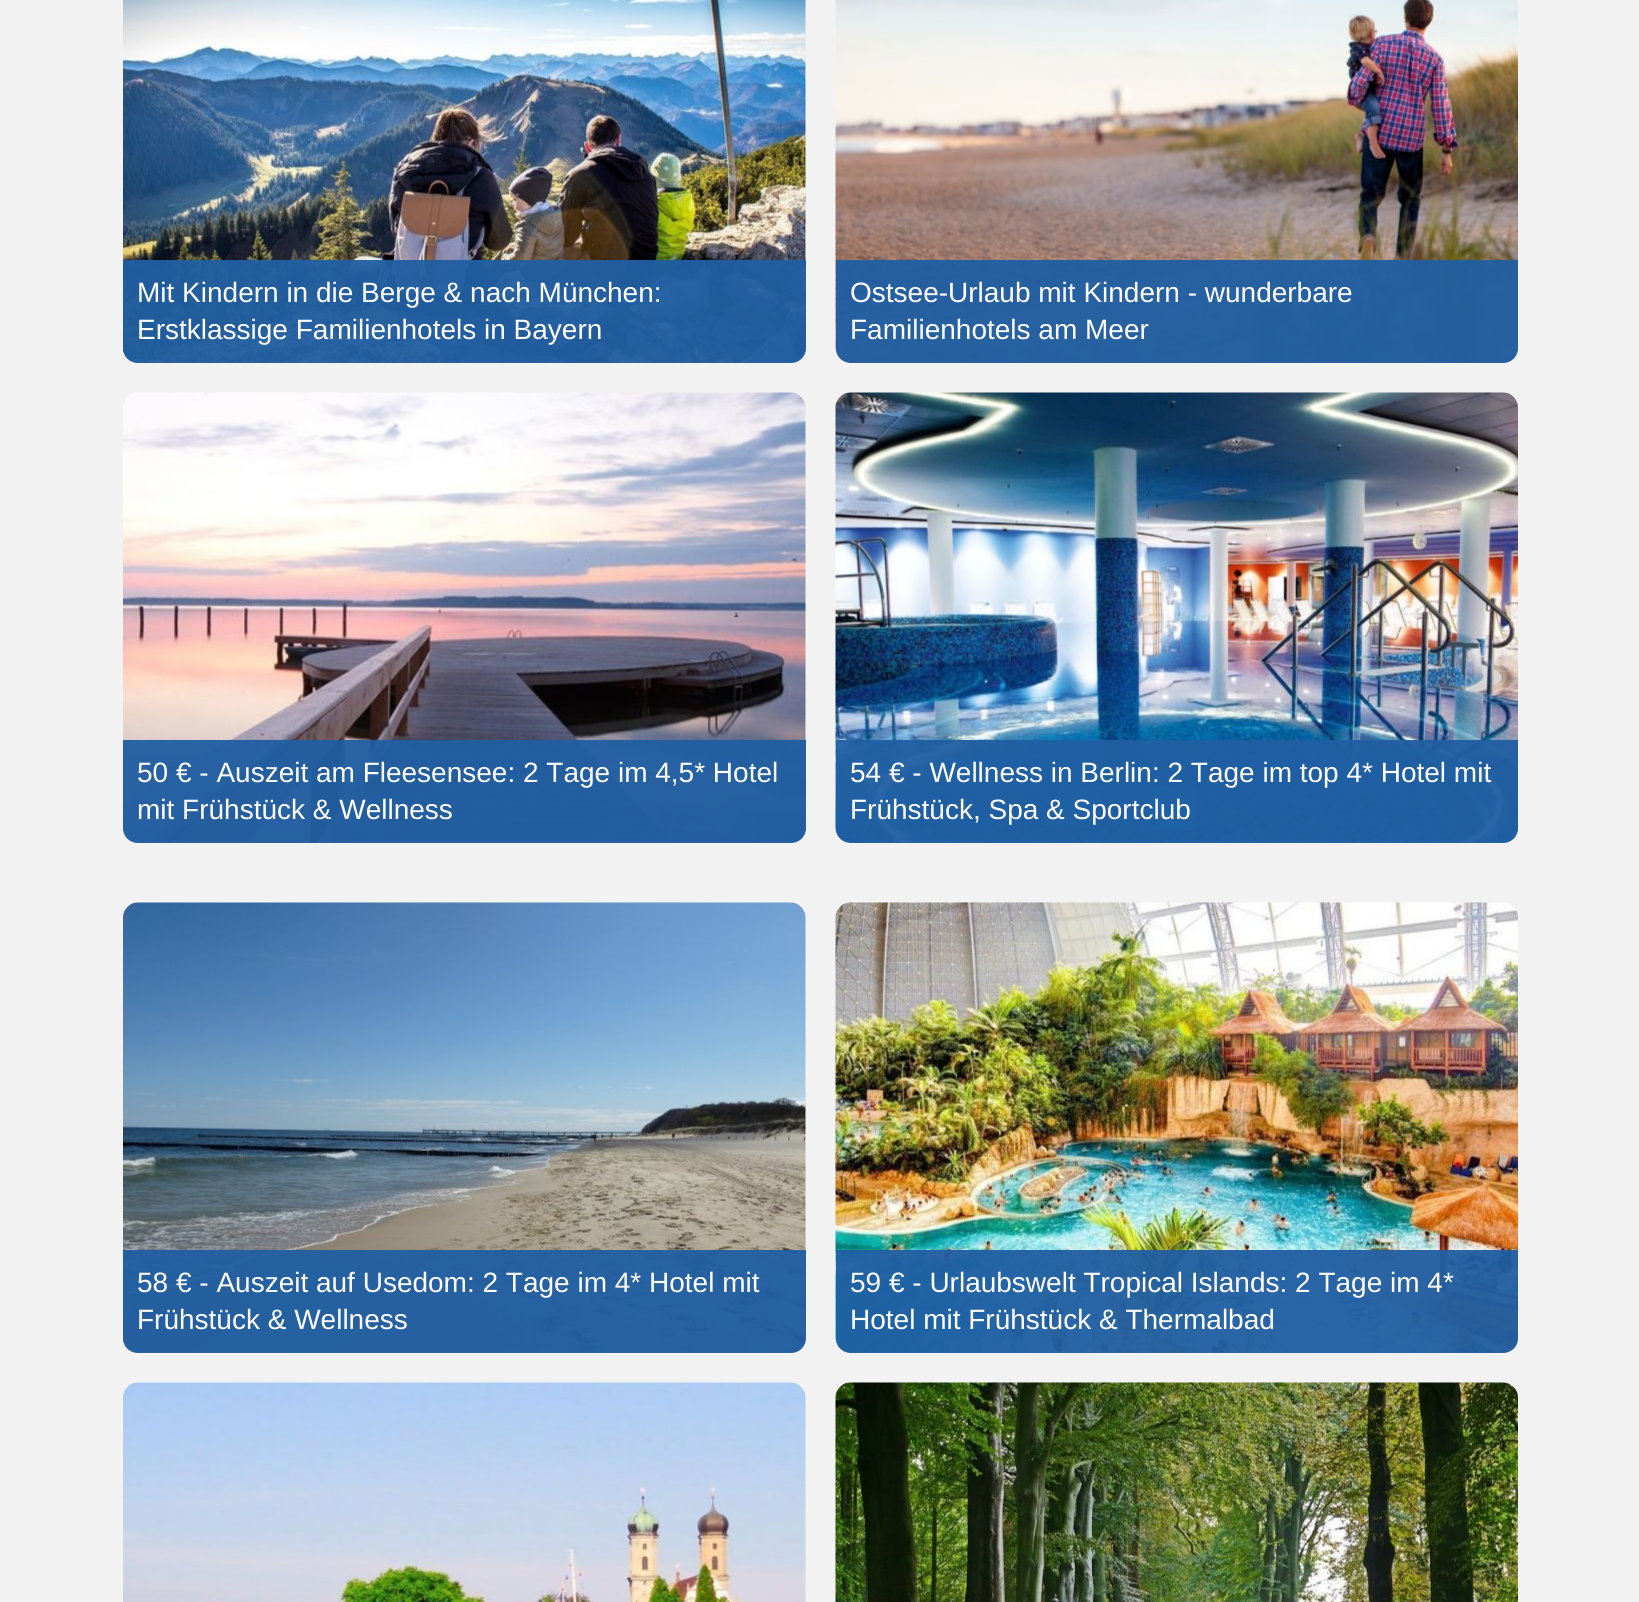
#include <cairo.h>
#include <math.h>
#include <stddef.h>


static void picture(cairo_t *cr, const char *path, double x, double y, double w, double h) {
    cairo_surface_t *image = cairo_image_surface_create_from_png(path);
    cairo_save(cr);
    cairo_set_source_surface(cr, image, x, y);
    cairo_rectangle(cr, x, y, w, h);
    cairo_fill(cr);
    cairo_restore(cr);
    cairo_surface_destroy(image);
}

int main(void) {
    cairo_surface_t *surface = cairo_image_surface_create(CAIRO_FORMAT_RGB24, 1639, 1602);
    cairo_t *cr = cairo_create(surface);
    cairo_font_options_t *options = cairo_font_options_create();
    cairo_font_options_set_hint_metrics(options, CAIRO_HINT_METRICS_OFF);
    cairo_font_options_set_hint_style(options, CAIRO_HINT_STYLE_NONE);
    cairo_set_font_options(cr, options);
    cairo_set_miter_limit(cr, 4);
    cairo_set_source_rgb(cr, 0.949, 0.949, 0.949);
    cairo_paint(cr);
    picture(cr, "img1.png", 123, 0, 683, 363);
    cairo_set_source_rgba(cr, 0.129, 0.373, 0.639, 0.95);
    cairo_new_path(cr);
    cairo_move_to(cr, 123, 260);
    cairo_line_to(cr, 806, 260);
    cairo_line_to(cr, 806, 348);
    cairo_curve_to(cr, 806, 356.5, 799.5, 363, 791, 363);
    cairo_line_to(cr, 138, 363);
    cairo_curve_to(cr, 129.5, 363, 123, 356.5, 123, 348);
    cairo_close_path(cr);
    cairo_fill(cr);
    cairo_select_font_face(cr, "Liberation Sans", CAIRO_FONT_SLANT_NORMAL, CAIRO_FONT_WEIGHT_NORMAL);
    cairo_set_font_size(cr, 28);
    cairo_set_source_rgb(cr, 1, 1, 1);
    cairo_move_to(cr, 137, 302);
    cairo_show_text(cr, "Mit Kindern in die Berge & nach München:");
    cairo_move_to(cr, 137, 339);
    cairo_show_text(cr, "Erstklassige Familienhotels in Bayern");
    picture(cr, "img2.png", 835, 0, 683, 363);
    cairo_set_source_rgba(cr, 0.129, 0.373, 0.639, 0.95);
    cairo_new_path(cr);
    cairo_move_to(cr, 836, 260);
    cairo_line_to(cr, 1518, 260);
    cairo_line_to(cr, 1518, 348);
    cairo_curve_to(cr, 1518, 356.5, 1511.5, 363, 1503, 363);
    cairo_line_to(cr, 851, 363);
    cairo_curve_to(cr, 842.5, 363, 836, 356.5, 836, 348);
    cairo_close_path(cr);
    cairo_fill(cr);
    cairo_set_source_rgb(cr, 1, 1, 1);
    cairo_move_to(cr, 850, 302);
    cairo_show_text(cr, "Ostsee-Urlaub mit Kindern - wunderbare");
    cairo_move_to(cr, 850, 339);
    cairo_show_text(cr, "Familienhotels am Meer");
    picture(cr, "img3.png", 123, 392, 683, 451);
    cairo_set_source_rgba(cr, 0.129, 0.373, 0.639, 0.95);
    cairo_new_path(cr);
    cairo_move_to(cr, 123, 740);
    cairo_line_to(cr, 806, 740);
    cairo_line_to(cr, 806, 828);
    cairo_curve_to(cr, 806, 836.5, 799.5, 843, 791, 843);
    cairo_line_to(cr, 138, 843);
    cairo_curve_to(cr, 129.5, 843, 123, 836.5, 123, 828);
    cairo_close_path(cr);
    cairo_fill(cr);
    cairo_set_source_rgb(cr, 1, 1, 1);
    cairo_move_to(cr, 137, 782);
    cairo_show_text(cr, "50 € - Auszeit am Fleesensee: 2 Tage im 4,5* Hotel");
    cairo_move_to(cr, 137, 819);
    cairo_show_text(cr, "mit Frühstück & Wellness");
    picture(cr, "img4.png", 835, 392, 683, 451);
    cairo_set_source_rgba(cr, 0.129, 0.373, 0.639, 0.95);
    cairo_new_path(cr);
    cairo_move_to(cr, 836, 740);
    cairo_line_to(cr, 1518, 740);
    cairo_line_to(cr, 1518, 828);
    cairo_curve_to(cr, 1518, 836.5, 1511.5, 843, 1503, 843);
    cairo_line_to(cr, 851, 843);
    cairo_curve_to(cr, 842.5, 843, 836, 836.5, 836, 828);
    cairo_close_path(cr);
    cairo_fill(cr);
    cairo_set_source_rgb(cr, 1, 1, 1);
    cairo_move_to(cr, 850, 782);
    cairo_show_text(cr, "54 € - Wellness in Berlin: 2 Tage im top 4* Hotel mit");
    cairo_move_to(cr, 850, 819);
    cairo_show_text(cr, "Frühstück, Spa & Sportclub");
    picture(cr, "img5.png", 122, 902, 684, 451);
    cairo_set_source_rgba(cr, 0.129, 0.373, 0.639, 0.95);
    cairo_new_path(cr);
    cairo_move_to(cr, 123, 1250);
    cairo_line_to(cr, 806, 1250);
    cairo_line_to(cr, 806, 1338);
    cairo_curve_to(cr, 806, 1346.5, 799.5, 1353, 791, 1353);
    cairo_line_to(cr, 138, 1353);
    cairo_curve_to(cr, 129.5, 1353, 123, 1346.5, 123, 1338);
    cairo_close_path(cr);
    cairo_fill(cr);
    cairo_set_source_rgb(cr, 1, 1, 1);
    cairo_move_to(cr, 137, 1292);
    cairo_show_text(cr, "58 € - Auszeit auf Usedom: 2 Tage im 4* Hotel mit");
    cairo_move_to(cr, 137, 1329);
    cairo_show_text(cr, "Frühstück & Wellness");
    picture(cr, "img6.png", 835, 902, 683, 451);
    cairo_set_source_rgba(cr, 0.129, 0.373, 0.639, 0.95);
    cairo_new_path(cr);
    cairo_move_to(cr, 836, 1250);
    cairo_line_to(cr, 1518, 1250);
    cairo_line_to(cr, 1518, 1338);
    cairo_curve_to(cr, 1518, 1346.5, 1511.5, 1353, 1503, 1353);
    cairo_line_to(cr, 851, 1353);
    cairo_curve_to(cr, 842.5, 1353, 836, 1346.5, 836, 1338);
    cairo_close_path(cr);
    cairo_fill(cr);
    cairo_set_source_rgb(cr, 1, 1, 1);
    cairo_move_to(cr, 850, 1292);
    cairo_show_text(cr, "59 € - Urlaubswelt Tropical Islands: 2 Tage im 4*");
    cairo_move_to(cr, 850, 1329);
    cairo_show_text(cr, "Hotel mit Frühstück & Thermalbad");
    picture(cr, "img7.png", 123, 1382, 683, 220);
    picture(cr, "img8.png", 835, 1382, 683, 220);
    cairo_surface_write_to_png(surface, "page.png");
    cairo_font_options_destroy(options);
    cairo_destroy(cr);
    cairo_surface_destroy(surface);
    return 0;
}
